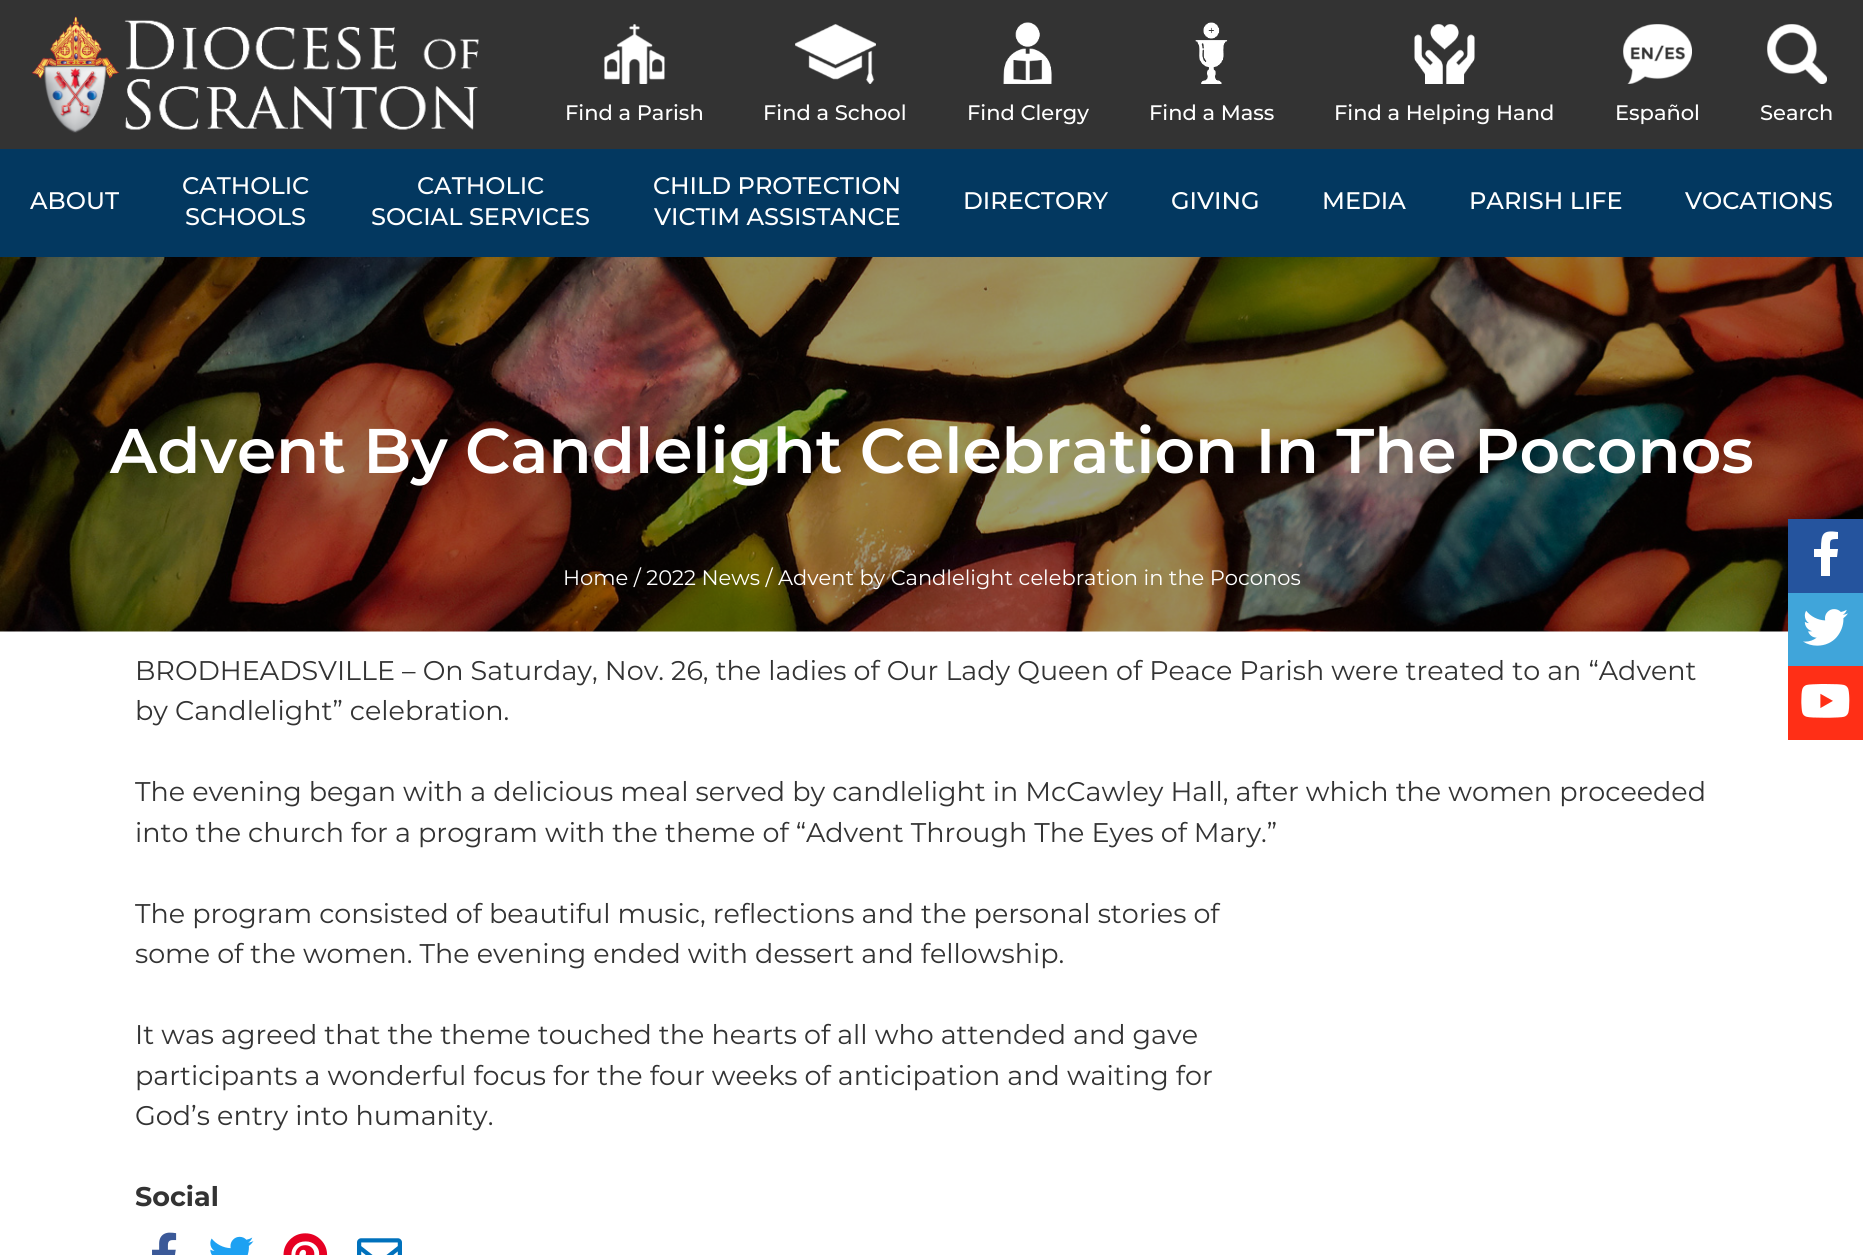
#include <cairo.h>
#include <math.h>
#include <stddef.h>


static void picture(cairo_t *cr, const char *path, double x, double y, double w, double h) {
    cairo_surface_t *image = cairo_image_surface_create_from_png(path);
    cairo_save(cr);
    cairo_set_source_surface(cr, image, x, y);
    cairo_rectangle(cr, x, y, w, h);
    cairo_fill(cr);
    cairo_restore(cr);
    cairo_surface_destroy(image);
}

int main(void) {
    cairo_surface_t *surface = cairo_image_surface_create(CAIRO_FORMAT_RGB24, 1863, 1255);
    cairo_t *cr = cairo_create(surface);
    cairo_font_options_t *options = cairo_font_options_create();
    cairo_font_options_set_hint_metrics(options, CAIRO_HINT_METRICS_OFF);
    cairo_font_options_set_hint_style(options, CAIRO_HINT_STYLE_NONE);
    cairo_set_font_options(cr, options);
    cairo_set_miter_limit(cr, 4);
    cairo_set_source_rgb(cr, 1, 1, 1);
    cairo_paint(cr);
    cairo_set_source_rgb(cr, 0.2, 0.2, 0.2);
    cairo_rectangle(cr, 0, 0, 1863, 149);
    cairo_fill(cr);
    picture(cr, "img1.png", 31, 16, 448, 117);
    picture(cr, "img2.png", 604, 24, 61, 60);
    cairo_select_font_face(cr, "Montserrat Medium", CAIRO_FONT_SLANT_NORMAL, CAIRO_FONT_WEIGHT_NORMAL);
    cairo_set_font_size(cr, 21);
    cairo_set_source_rgb(cr, 1, 1, 1);
    cairo_move_to(cr, 565, 120);
    cairo_show_text(cr, "Find a Parish");
    picture(cr, "img3.png", 795, 24, 81, 60);
    cairo_move_to(cr, 763, 120);
    cairo_show_text(cr, "Find a School");
    picture(cr, "img4.png", 1003, 22, 49, 62);
    cairo_move_to(cr, 967, 120);
    cairo_show_text(cr, "Find Clergy");
    picture(cr, "img5.png", 1195, 22, 33, 62);
    cairo_move_to(cr, 1149, 120);
    cairo_show_text(cr, "Find a Mass");
    picture(cr, "img6.png", 1414, 24, 61, 60);
    cairo_move_to(cr, 1334, 120);
    cairo_show_text(cr, "Find a Helping Hand");
    picture(cr, "img7.png", 1623, 24, 69, 60);
    cairo_move_to(cr, 1615, 120);
    cairo_show_text(cr, "Español");
    picture(cr, "img8.png", 1767, 24, 60, 60);
    cairo_move_to(cr, 1760, 120);
    cairo_show_text(cr, "Search");
    cairo_set_source_rgb(cr, 0.012, 0.22, 0.376);
    cairo_rectangle(cr, 0, 149, 1863, 108);
    cairo_fill(cr);
    cairo_set_font_size(cr, 24);
    cairo_set_source_rgb(cr, 1, 1, 1);
    cairo_move_to(cr, 30, 209);
    cairo_show_text(cr, "ABOUT");
    cairo_move_to(cr, 182, 194);
    cairo_show_text(cr, "CATHOLIC");
    cairo_move_to(cr, 185, 225);
    cairo_show_text(cr, "SCHOOLS");
    cairo_move_to(cr, 417, 194);
    cairo_show_text(cr, "CATHOLIC");
    cairo_move_to(cr, 371, 225);
    cairo_show_text(cr, "SOCIAL SERVICES");
    cairo_move_to(cr, 653, 194);
    cairo_show_text(cr, "CHILD PROTECTION");
    cairo_move_to(cr, 654, 225);
    cairo_show_text(cr, "VICTIM ASSISTANCE");
    cairo_move_to(cr, 963, 209);
    cairo_show_text(cr, "DIRECTORY");
    cairo_move_to(cr, 1171, 209);
    cairo_show_text(cr, "GIVING");
    cairo_move_to(cr, 1322, 209);
    cairo_show_text(cr, "MEDIA");
    cairo_move_to(cr, 1469, 209);
    cairo_show_text(cr, "PARISH LIFE");
    cairo_move_to(cr, 1685, 209);
    cairo_show_text(cr, "VOCATIONS");
    picture(cr, "img9.png", 0, 257, 1863, 375);
    cairo_select_font_face(cr, "Montserrat SemiBold", CAIRO_FONT_SLANT_NORMAL, CAIRO_FONT_WEIGHT_NORMAL);
    cairo_set_font_size(cr, 63);
    cairo_move_to(cr, 110, 473);
    cairo_show_text(cr, "Advent By Candlelight Celebration In The Poconos");
    cairo_select_font_face(cr, "Montserrat", CAIRO_FONT_SLANT_NORMAL, CAIRO_FONT_WEIGHT_NORMAL);
    cairo_set_font_size(cr, 21);
    cairo_move_to(cr, 563, 585);
    cairo_show_text(cr, "Home / 2022 News / Advent by Candlelight celebration in the Poconos");
    cairo_set_font_size(cr, 27);
    cairo_set_source_rgb(cr, 0.2, 0.2, 0.2);
    cairo_move_to(cr, 135, 680);
    cairo_show_text(cr, "BRODHEADSVILLE – On Saturday, Nov. 26, the ladies of Our Lady Queen of Peace Parish were treated to an “Advent");
    cairo_move_to(cr, 135, 720);
    cairo_show_text(cr, "by Candlelight” celebration.");
    cairo_move_to(cr, 135, 801);
    cairo_show_text(cr, "The evening began with a delicious meal served by candlelight in McCawley Hall, after which the women proceeded");
    cairo_move_to(cr, 135, 842);
    cairo_show_text(cr, "into the church for a program with the theme of “Advent Through The Eyes of Mary.”");
    cairo_move_to(cr, 135, 923);
    cairo_show_text(cr, "The program consisted of beautiful music, reflections and the personal stories of");
    cairo_move_to(cr, 135, 963);
    cairo_show_text(cr, "some of the women. The evening ended with dessert and fellowship.");
    cairo_move_to(cr, 135, 1044);
    cairo_show_text(cr, "It was agreed that the theme touched the hearts of all who attended and gave");
    cairo_move_to(cr, 135, 1085);
    cairo_show_text(cr, "participants a wonderful focus for the four weeks of anticipation and waiting for");
    cairo_move_to(cr, 135, 1125);
    cairo_show_text(cr, "God’s entry into humanity.");
    cairo_select_font_face(cr, "Montserrat", CAIRO_FONT_SLANT_NORMAL, CAIRO_FONT_WEIGHT_BOLD);
    cairo_move_to(cr, 135, 1206);
    cairo_show_text(cr, "Social");
    picture(cr, "img10.png", 152, 1232, 25, 23);
    picture(cr, "img11.png", 210, 1236, 44, 19);
    picture(cr, "img12.png", 283, 1233, 45, 22);
    picture(cr, "img13.png", 357, 1238, 45, 17);
    cairo_set_source_rgb(cr, 0.145, 0.329, 0.62);
    cairo_rectangle(cr, 1788, 519, 75, 74);
    cairo_fill(cr);
    cairo_set_source_rgb(cr, 1, 1, 1);
    cairo_new_path(cr);
    cairo_move_to(cr, 1837, 557);
    cairo_line_to(cr, 1830, 557);
    cairo_line_to(cr, 1830, 576);
    cairo_line_to(cr, 1821, 576);
    cairo_line_to(cr, 1821, 557);
    cairo_line_to(cr, 1814, 557);
    cairo_line_to(cr, 1814, 549);
    cairo_line_to(cr, 1821, 549);
    cairo_curve_to(cr, 1821, 533, 1823, 530, 1838, 532);
    cairo_line_to(cr, 1838, 539);
    cairo_curve_to(cr, 1829, 539, 1830, 540, 1830, 549);
    cairo_line_to(cr, 1838, 549);
    cairo_close_path(cr);
    cairo_fill(cr);
    cairo_set_source_rgb(cr, 0.251, 0.647, 0.855);
    cairo_rectangle(cr, 1788, 593, 75, 73);
    cairo_fill(cr);
    picture(cr, "img14.png", 1803, 609, 45, 37);
    cairo_set_source_rgb(cr, 1, 0.184, 0.086);
    cairo_rectangle(cr, 1788, 666, 75, 74);
    cairo_fill(cr);
    picture(cr, "img15.png", 1801, 684, 49, 34);
    cairo_surface_write_to_png(surface, "page.png");
    cairo_font_options_destroy(options);
    cairo_destroy(cr);
    cairo_surface_destroy(surface);
    return 0;
}
